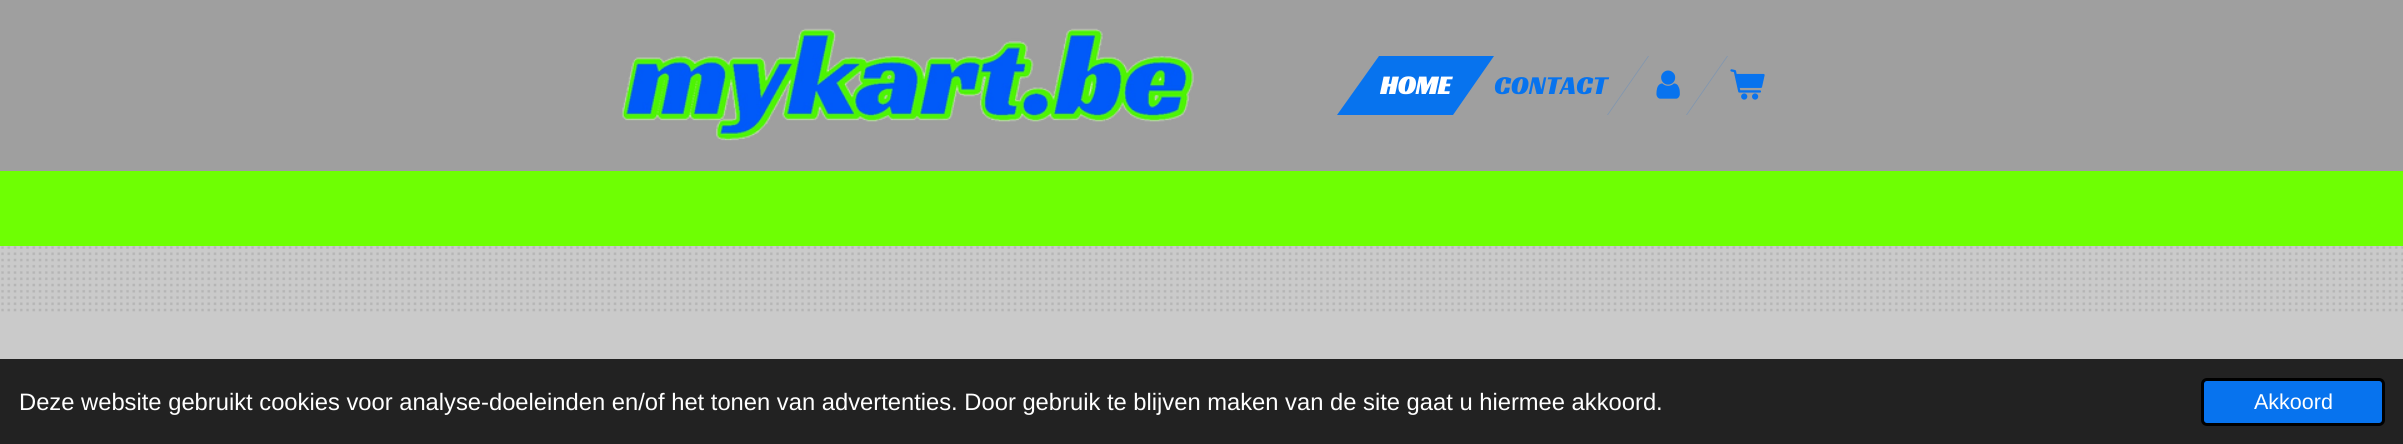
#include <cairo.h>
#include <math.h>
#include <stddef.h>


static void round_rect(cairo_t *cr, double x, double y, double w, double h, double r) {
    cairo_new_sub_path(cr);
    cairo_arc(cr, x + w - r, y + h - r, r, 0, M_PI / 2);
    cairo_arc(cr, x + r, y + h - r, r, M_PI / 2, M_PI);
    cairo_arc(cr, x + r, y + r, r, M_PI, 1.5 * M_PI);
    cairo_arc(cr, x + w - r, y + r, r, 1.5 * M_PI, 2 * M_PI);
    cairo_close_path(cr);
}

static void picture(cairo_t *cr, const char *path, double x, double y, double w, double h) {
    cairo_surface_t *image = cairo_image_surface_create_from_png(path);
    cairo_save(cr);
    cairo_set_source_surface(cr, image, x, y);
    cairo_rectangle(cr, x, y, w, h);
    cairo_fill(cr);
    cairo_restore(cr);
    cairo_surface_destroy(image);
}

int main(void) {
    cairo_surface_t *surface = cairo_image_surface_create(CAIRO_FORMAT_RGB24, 2403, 444);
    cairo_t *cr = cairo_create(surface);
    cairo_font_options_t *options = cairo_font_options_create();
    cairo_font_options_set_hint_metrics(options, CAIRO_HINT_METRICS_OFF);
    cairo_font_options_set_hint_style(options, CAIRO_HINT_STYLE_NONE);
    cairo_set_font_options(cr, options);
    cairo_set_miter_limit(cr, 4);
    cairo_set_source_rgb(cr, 0.792, 0.792, 0.792);
    cairo_paint(cr);
    cairo_set_source_rgb(cr, 0.624, 0.624, 0.624);
    cairo_rectangle(cr, 0, 0, 2403, 171);
    cairo_fill(cr);
    picture(cr, "img1.png", 622, 28, 572, 113);
    cairo_set_source_rgb(cr, 0.031, 0.451, 0.933);
    cairo_new_path(cr);
    cairo_move_to(cr, 1379, 56);
    cairo_line_to(cr, 1494, 56);
    cairo_line_to(cr, 1453, 115);
    cairo_line_to(cr, 1337, 115);
    cairo_close_path(cr);
    cairo_fill(cr);
    cairo_select_font_face(cr, "Racing Sans One", CAIRO_FONT_SLANT_NORMAL, CAIRO_FONT_WEIGHT_BOLD);
    cairo_set_font_size(cr, 26.25);
    cairo_set_source_rgb(cr, 1, 1, 1);
    cairo_move_to(cr, 1380, 94);
    cairo_show_text(cr, "HOME");
    cairo_set_source_rgb(cr, 0.506, 0.588, 0.686);
    cairo_new_path(cr);
    cairo_move_to(cr, 1648, 56);
    cairo_line_to(cr, 1649, 56);
    cairo_line_to(cr, 1608, 115);
    cairo_line_to(cr, 1607, 115);
    cairo_close_path(cr);
    cairo_fill(cr);
    cairo_select_font_face(cr, "Racing Sans One", CAIRO_FONT_SLANT_NORMAL, CAIRO_FONT_WEIGHT_NORMAL);
    cairo_set_source_rgb(cr, 0.031, 0.451, 0.933);
    cairo_move_to(cr, 1494, 94);
    cairo_show_text(cr, "CONTACT");
    picture(cr, "img2.png", 1656, 70, 24, 29);
    cairo_set_source_rgb(cr, 0.506, 0.588, 0.686);
    cairo_new_path(cr);
    cairo_move_to(cr, 1727, 56);
    cairo_line_to(cr, 1728, 56);
    cairo_line_to(cr, 1687, 115);
    cairo_line_to(cr, 1686, 115);
    cairo_close_path(cr);
    cairo_fill(cr);
    picture(cr, "img3.png", 1730, 69, 35, 31);
    picture(cr, "img4.png", 1, 246, 2402, 66);
    cairo_set_source_rgb(cr, 0.431, 1, 0.012);
    cairo_rectangle(cr, 0, 171, 2403, 75);
    cairo_fill(cr);
    cairo_set_source_rgb(cr, 0.133, 0.133, 0.133);
    cairo_rectangle(cr, 0, 359, 2403, 85);
    cairo_fill(cr);
    cairo_select_font_face(cr, "Liberation Sans", CAIRO_FONT_SLANT_NORMAL, CAIRO_FONT_WEIGHT_NORMAL);
    cairo_set_font_size(cr, 23.75);
    cairo_set_source_rgb(cr, 1, 1, 1);
    cairo_move_to(cr, 19, 410);
    cairo_show_text(cr, "Deze website gebruikt cookies voor analyse-doeleinden en/of het tonen van advertenties. Door gebruik te blijven maken van de site gaat u hiermee akkoord.");
    cairo_set_source_rgb(cr, 0.031, 0.451, 0.933);
    round_rect(cr, 2202.5, 379.5, 181, 45, 4.5);
    cairo_fill_preserve(cr);
    cairo_set_source_rgb(cr, 0, 0, 0);
    cairo_set_line_width(cr, 3);
    cairo_stroke(cr);
    cairo_set_font_size(cr, 21.5);
    cairo_set_source_rgb(cr, 1, 1, 1);
    cairo_move_to(cr, 2254, 409);
    cairo_show_text(cr, "Akkoord");
    cairo_surface_write_to_png(surface, "page.png");
    cairo_font_options_destroy(options);
    cairo_destroy(cr);
    cairo_surface_destroy(surface);
    return 0;
}
